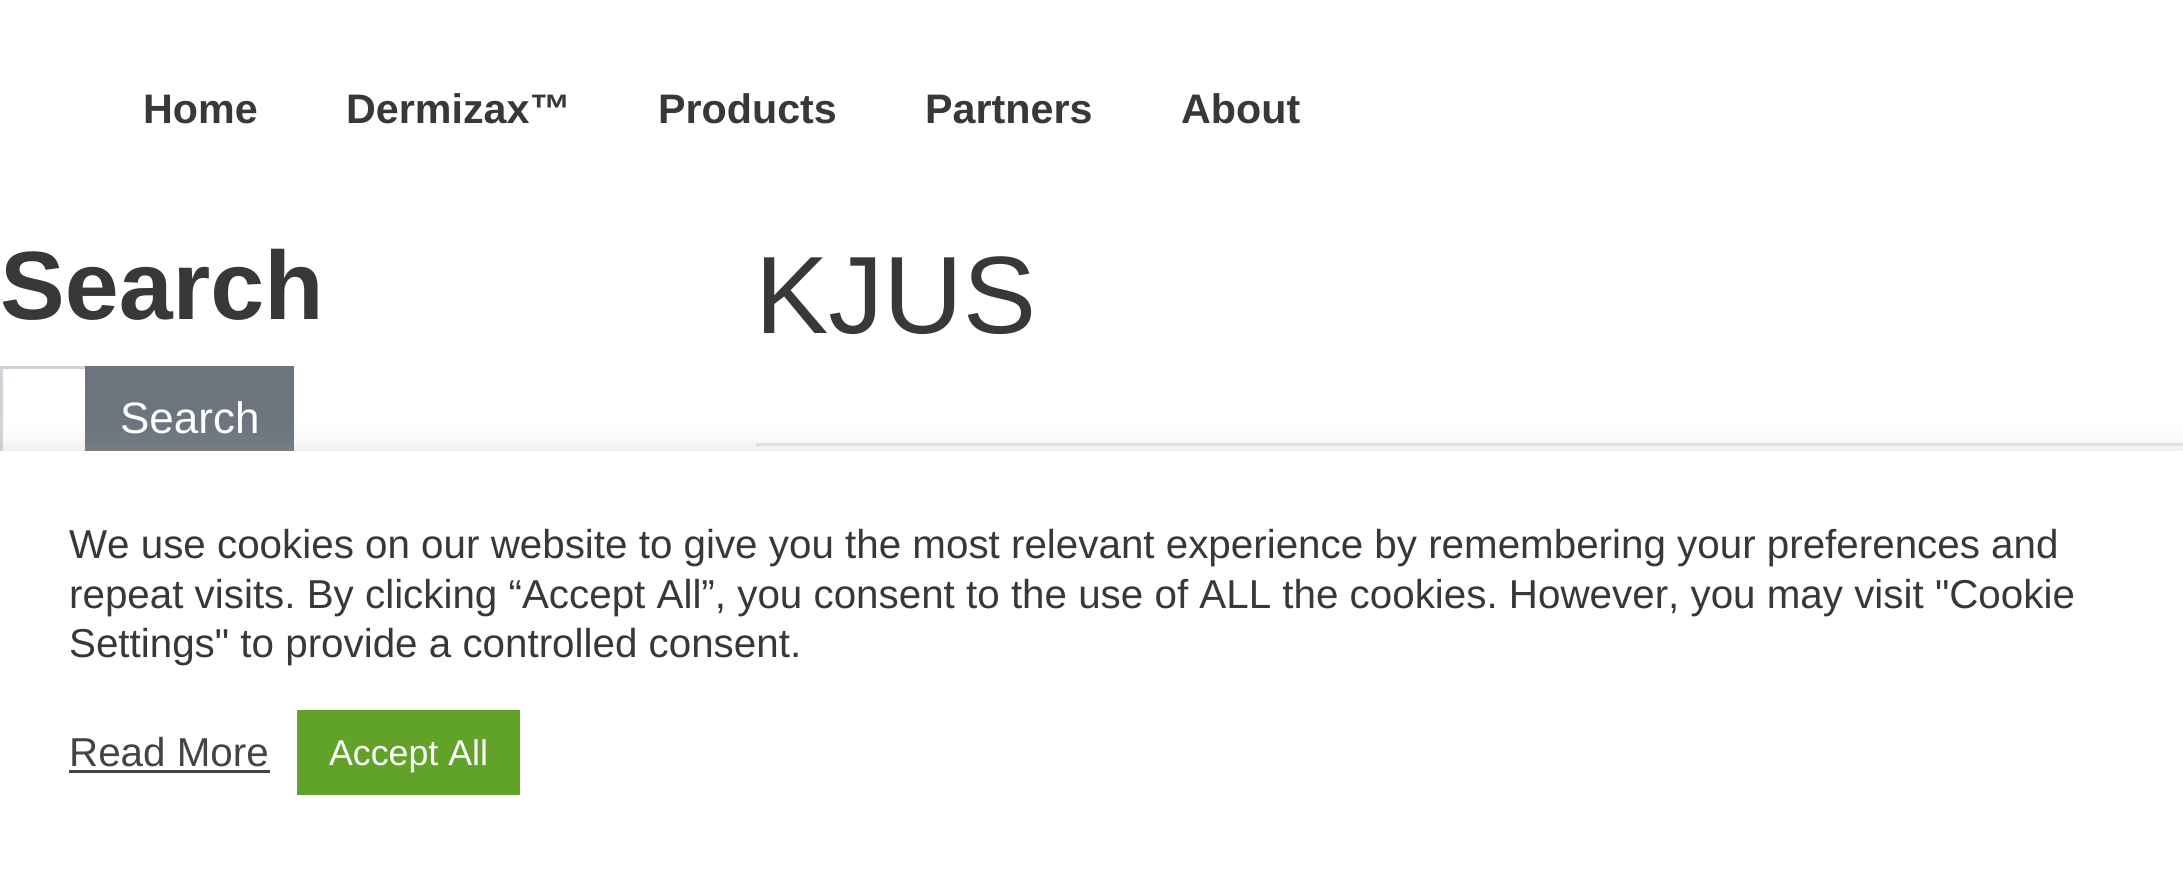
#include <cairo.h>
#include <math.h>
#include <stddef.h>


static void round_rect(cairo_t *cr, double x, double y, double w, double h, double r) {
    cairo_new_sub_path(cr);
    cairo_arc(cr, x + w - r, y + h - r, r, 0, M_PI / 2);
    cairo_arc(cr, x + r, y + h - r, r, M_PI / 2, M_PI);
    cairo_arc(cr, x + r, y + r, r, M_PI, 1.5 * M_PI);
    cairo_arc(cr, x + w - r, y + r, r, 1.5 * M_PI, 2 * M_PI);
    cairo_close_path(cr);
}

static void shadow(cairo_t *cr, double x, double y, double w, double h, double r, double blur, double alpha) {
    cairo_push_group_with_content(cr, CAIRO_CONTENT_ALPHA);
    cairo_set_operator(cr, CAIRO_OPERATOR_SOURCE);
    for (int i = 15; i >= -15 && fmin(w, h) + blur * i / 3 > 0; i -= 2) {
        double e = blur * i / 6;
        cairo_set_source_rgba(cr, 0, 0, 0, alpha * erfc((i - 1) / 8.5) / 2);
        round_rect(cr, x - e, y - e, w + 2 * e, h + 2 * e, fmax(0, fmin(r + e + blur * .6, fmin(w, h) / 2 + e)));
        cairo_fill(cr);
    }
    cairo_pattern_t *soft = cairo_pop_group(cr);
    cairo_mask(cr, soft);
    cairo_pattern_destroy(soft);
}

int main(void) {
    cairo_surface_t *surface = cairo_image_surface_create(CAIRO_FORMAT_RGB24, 2183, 877);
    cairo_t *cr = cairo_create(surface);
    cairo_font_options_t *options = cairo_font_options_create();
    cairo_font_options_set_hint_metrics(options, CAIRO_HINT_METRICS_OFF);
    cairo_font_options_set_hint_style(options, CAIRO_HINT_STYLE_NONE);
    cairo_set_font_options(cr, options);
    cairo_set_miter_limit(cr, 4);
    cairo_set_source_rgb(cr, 1, 1, 1);
    cairo_paint(cr);
    cairo_select_font_face(cr, "Liberation Sans", CAIRO_FONT_SLANT_NORMAL, CAIRO_FONT_WEIGHT_BOLD);
    cairo_set_font_size(cr, 41.25);
    cairo_set_source_rgb(cr, 0.22, 0.22, 0.216);
    cairo_move_to(cr, 143, 123);
    cairo_show_text(cr, "Home");
    cairo_move_to(cr, 346, 123);
    cairo_show_text(cr, "Dermizax™");
    cairo_move_to(cr, 658, 123);
    cairo_show_text(cr, "Products");
    cairo_move_to(cr, 925, 123);
    cairo_show_text(cr, "Partners");
    cairo_move_to(cr, 1181, 123);
    cairo_show_text(cr, "About");
    cairo_set_font_size(cr, 97);
    cairo_move_to(cr, 0, 319);
    cairo_show_text(cr, "Search");
    cairo_rectangle(cr, 1.5, 367.5, 85, 101);
    cairo_set_source_rgb(cr, 0.808, 0.831, 0.855);
    cairo_set_line_width(cr, 3);
    cairo_stroke(cr);
    cairo_set_source_rgb(cr, 0.424, 0.459, 0.49);
    cairo_rectangle(cr, 85, 366, 209, 85);
    cairo_fill(cr);
    cairo_select_font_face(cr, "Liberation Sans", CAIRO_FONT_SLANT_NORMAL, CAIRO_FONT_WEIGHT_NORMAL);
    cairo_set_font_size(cr, 44);
    cairo_set_source_rgb(cr, 1, 1, 1);
    cairo_move_to(cr, 120, 433);
    cairo_show_text(cr, "Search");
    cairo_set_font_size(cr, 110);
    cairo_set_source_rgb(cr, 0.22, 0.22, 0.216);
    cairo_move_to(cr, 755, 333);
    cairo_show_text(cr, "KJUS");
    cairo_set_source_rgb(cr, 0.902, 0.902, 0.902);
    cairo_rectangle(cr, 756, 443, 1427, 3);
    cairo_fill(cr);
    cairo_set_source_rgb(cr, 0.675, 0.671, 0.671);
    shadow(cr, 0, 448, 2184, 427, 0, 14, 0.3);
    cairo_set_source_rgb(cr, 1, 1, 1);
    cairo_rectangle(cr, 0, 451, 2183, 426);
    cairo_fill(cr);
    cairo_set_font_size(cr, 40.35);
    cairo_set_source_rgb(cr, 0.22, 0.22, 0.216);
    cairo_move_to(cr, 69, 558);
    cairo_show_text(cr, "We use cookies on our website to give you the most relevant experience by remembering your preferences and");
    cairo_move_to(cr, 69, 608);
    cairo_show_text(cr, "repeat visits. By clicking “Accept All”, you consent to the use of ALL the cookies. However, you may visit \"Cookie");
    cairo_move_to(cr, 69, 657);
    cairo_show_text(cr, "Settings\" to provide a controlled consent.");
    cairo_set_source_rgb(cr, 0.267, 0.267, 0.267);
    cairo_move_to(cr, 69, 766);
    cairo_show_text(cr, "Read More");
    cairo_rectangle(cr, 69, 770, 201, 3);
    cairo_fill(cr);
    cairo_set_source_rgb(cr, 0.38, 0.635, 0.161);
    cairo_rectangle(cr, 297, 710, 223, 85);
    cairo_fill(cr);
    cairo_set_font_size(cr, 35.75);
    cairo_set_source_rgb(cr, 1, 1, 1);
    cairo_move_to(cr, 329, 765);
    cairo_show_text(cr, "Accept All");
    cairo_surface_write_to_png(surface, "page.png");
    cairo_font_options_destroy(options);
    cairo_destroy(cr);
    cairo_surface_destroy(surface);
    return 0;
}
